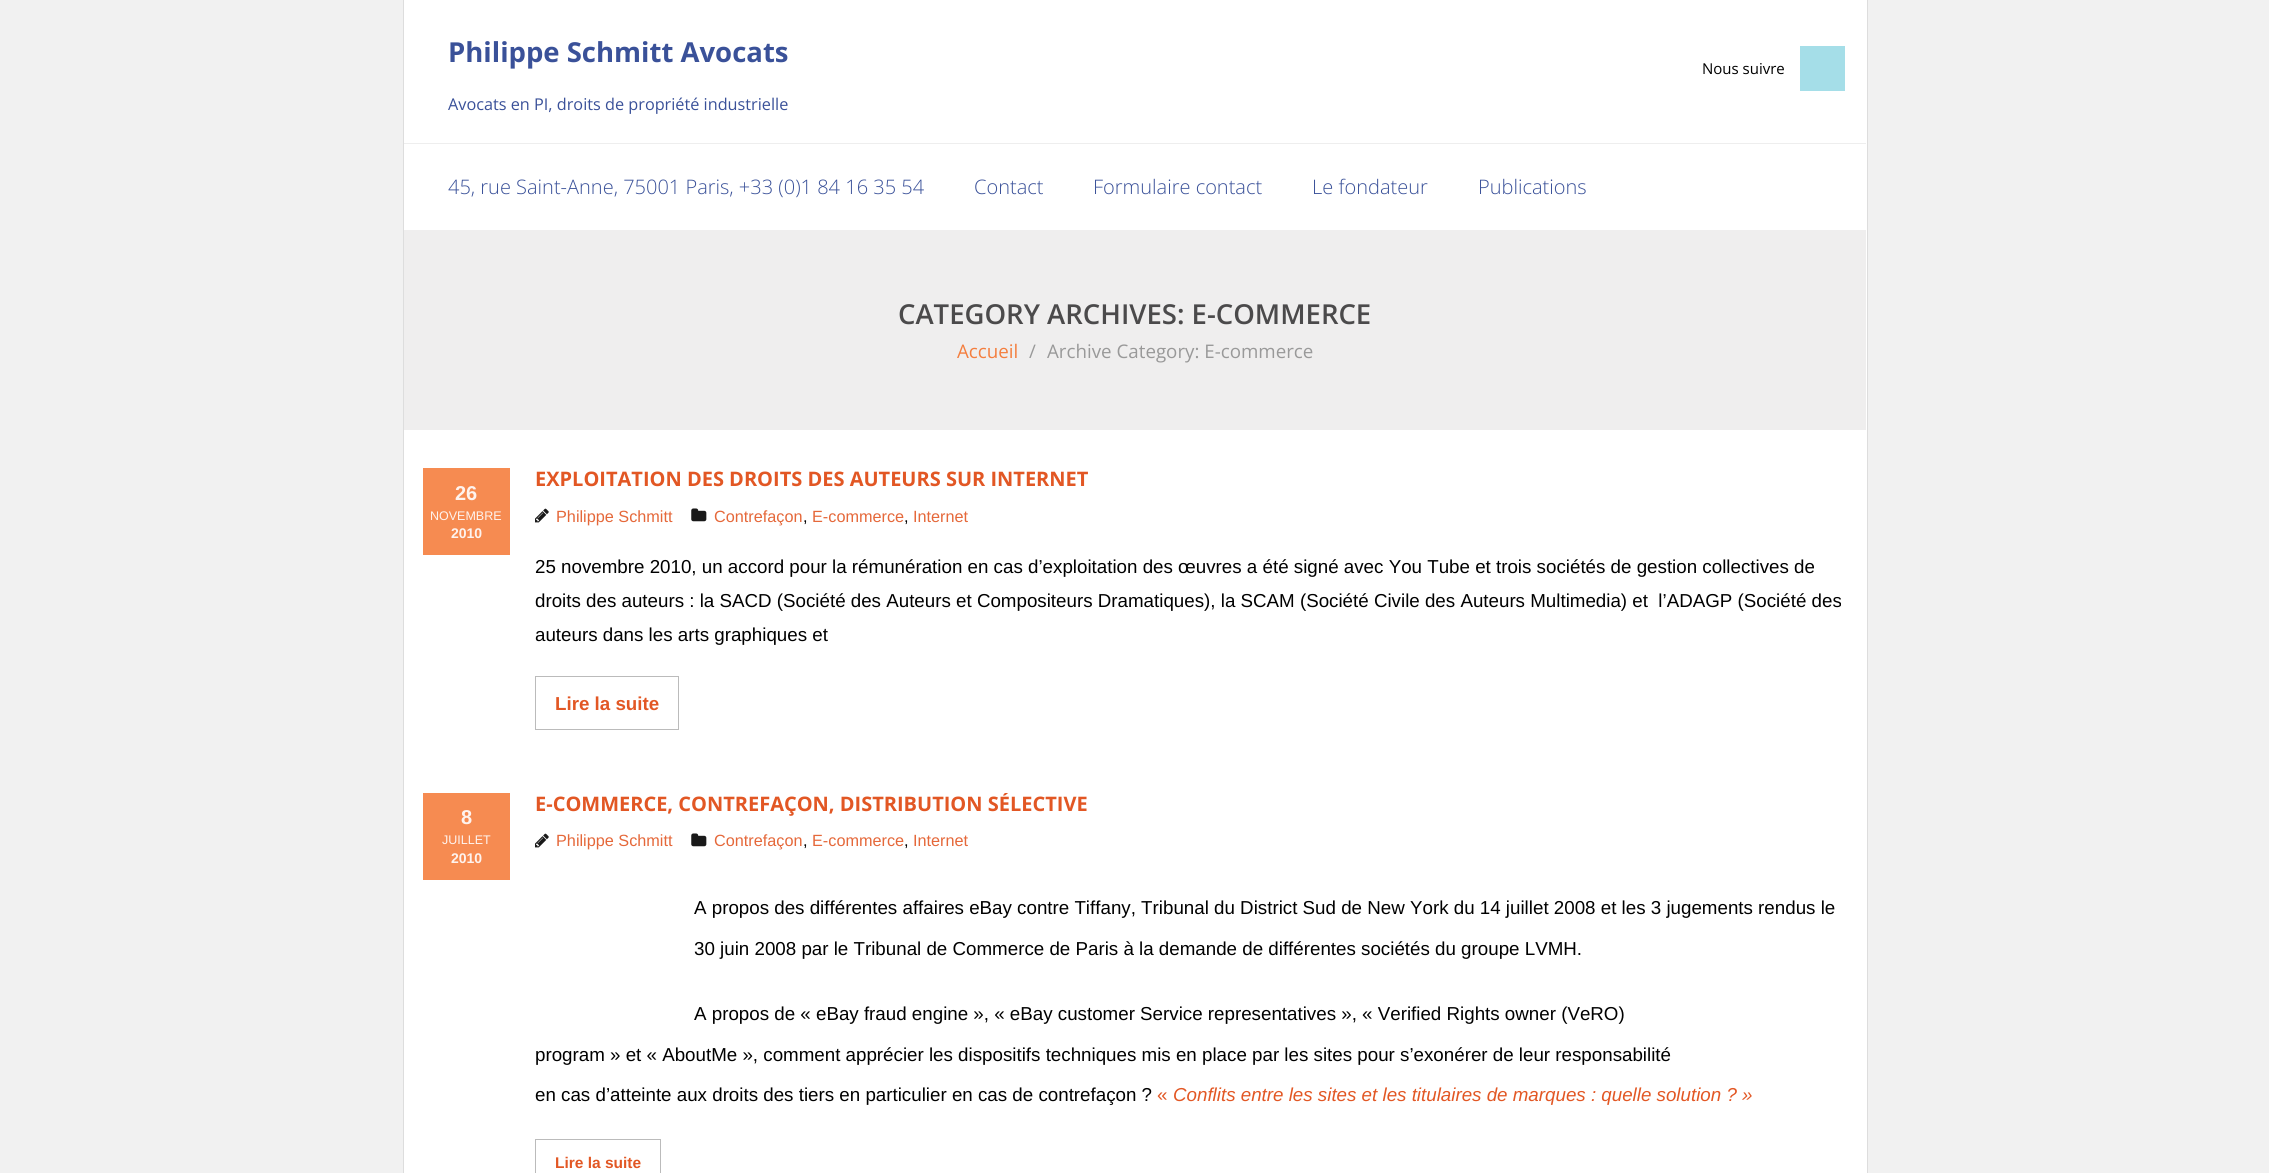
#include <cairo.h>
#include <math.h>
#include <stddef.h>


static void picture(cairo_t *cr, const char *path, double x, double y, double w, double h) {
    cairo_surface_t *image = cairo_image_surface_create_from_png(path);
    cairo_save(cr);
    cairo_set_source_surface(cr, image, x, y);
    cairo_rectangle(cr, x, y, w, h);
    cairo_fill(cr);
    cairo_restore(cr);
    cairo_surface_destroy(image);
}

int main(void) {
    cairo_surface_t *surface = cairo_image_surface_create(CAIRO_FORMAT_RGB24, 2269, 1173);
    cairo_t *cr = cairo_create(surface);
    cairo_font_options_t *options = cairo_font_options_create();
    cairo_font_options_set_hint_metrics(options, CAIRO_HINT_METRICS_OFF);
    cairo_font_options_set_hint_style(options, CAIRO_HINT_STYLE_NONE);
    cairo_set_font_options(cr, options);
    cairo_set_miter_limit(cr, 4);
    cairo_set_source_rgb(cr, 0.945, 0.945, 0.945);
    cairo_paint(cr);
    cairo_set_source_rgb(cr, 1, 1, 1);
    cairo_rectangle(cr, 403.5, -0.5, 1464, 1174);
    cairo_fill_preserve(cr);
    cairo_set_source_rgb(cr, 0.867, 0.867, 0.867);
    cairo_set_line_width(cr, 1);
    cairo_stroke(cr);
    cairo_select_font_face(cr, "Open Sans", CAIRO_FONT_SLANT_NORMAL, CAIRO_FONT_WEIGHT_BOLD);
    cairo_set_font_size(cr, 27.5);
    cairo_set_source_rgb(cr, 0.227, 0.318, 0.6);
    cairo_move_to(cr, 448, 62);
    cairo_show_text(cr, "Philippe Schmitt Avocats");
    cairo_select_font_face(cr, "Open Sans", CAIRO_FONT_SLANT_NORMAL, CAIRO_FONT_WEIGHT_NORMAL);
    cairo_set_font_size(cr, 16.25);
    cairo_move_to(cr, 448, 110);
    cairo_show_text(cr, "Avocats en PI, droits de propriété industrielle");
    cairo_set_font_size(cr, 15);
    cairo_set_source_rgb(cr, 0, 0, 0);
    cairo_move_to(cr, 1702, 74);
    cairo_show_text(cr, "Nous suivre");
    cairo_set_source_rgb(cr, 0.647, 0.871, 0.91);
    cairo_rectangle(cr, 1800, 46, 45, 45);
    cairo_fill(cr);
    cairo_set_source_rgb(cr, 0.933, 0.933, 0.933);
    cairo_rectangle(cr, 404, 143, 1462, 1);
    cairo_fill(cr);
    cairo_select_font_face(cr, "Open Sans Light", CAIRO_FONT_SLANT_NORMAL, CAIRO_FONT_WEIGHT_NORMAL);
    cairo_set_font_size(cr, 20);
    cairo_set_source_rgb(cr, 0.227, 0.318, 0.6);
    cairo_move_to(cr, 448, 194);
    cairo_show_text(cr, "45, rue Saint-Anne, 75001 Paris, +33 (0)1 84 16 35 54");
    cairo_move_to(cr, 974, 194);
    cairo_show_text(cr, "Contact");
    cairo_move_to(cr, 1093, 194);
    cairo_show_text(cr, "Formulaire contact");
    cairo_move_to(cr, 1312, 194);
    cairo_show_text(cr, "Le fondateur");
    cairo_move_to(cr, 1478, 194);
    cairo_show_text(cr, "Publications");
    cairo_set_source_rgb(cr, 0.937, 0.933, 0.933);
    cairo_rectangle(cr, 404, 230, 1462, 200);
    cairo_fill(cr);
    cairo_select_font_face(cr, "Open Sans SemiBold", CAIRO_FONT_SLANT_NORMAL, CAIRO_FONT_WEIGHT_NORMAL);
    cairo_set_font_size(cr, 27.5);
    cairo_set_source_rgb(cr, 0.294, 0.29, 0.294);
    cairo_move_to(cr, 898, 324);
    cairo_show_text(cr, "CATEGORY ARCHIVES: E-COMMERCE");
    cairo_select_font_face(cr, "Open Sans", CAIRO_FONT_SLANT_NORMAL, CAIRO_FONT_WEIGHT_NORMAL);
    cairo_set_font_size(cr, 18.75);
    cairo_set_source_rgb(cr, 0.957, 0.494, 0.243);
    cairo_move_to(cr, 957, 358);
    cairo_show_text(cr, "Accueil");
    cairo_set_source_rgb(cr, 0.6, 0.6, 0.6);
    cairo_move_to(cr, 1029, 358);
    cairo_show_text(cr, "/");
    cairo_move_to(cr, 1047, 358);
    cairo_show_text(cr, "Archive Category: E-commerce");
    cairo_select_font_face(cr, "Open Sans", CAIRO_FONT_SLANT_NORMAL, CAIRO_FONT_WEIGHT_BOLD);
    cairo_set_font_size(cr, 20);
    cairo_set_source_rgb(cr, 0.886, 0.341, 0.141);
    cairo_move_to(cr, 535, 486);
    cairo_show_text(cr, "EXPLOITATION DES DROITS DES AUTEURS SUR INTERNET");
    cairo_set_source_rgb(cr, 0.961, 0.545, 0.318);
    cairo_rectangle(cr, 423, 468, 87, 87);
    cairo_fill(cr);
    cairo_select_font_face(cr, "Liberation Sans", CAIRO_FONT_SLANT_NORMAL, CAIRO_FONT_WEIGHT_BOLD);
    cairo_set_source_rgb(cr, 0.996, 0.953, 0.933);
    cairo_move_to(cr, 455, 500);
    cairo_show_text(cr, "26");
    cairo_select_font_face(cr, "Liberation Sans", CAIRO_FONT_SLANT_NORMAL, CAIRO_FONT_WEIGHT_NORMAL);
    cairo_set_font_size(cr, 12.5);
    cairo_move_to(cr, 430, 520);
    cairo_show_text(cr, "NOVEMBRE");
    cairo_select_font_face(cr, "Liberation Sans", CAIRO_FONT_SLANT_NORMAL, CAIRO_FONT_WEIGHT_BOLD);
    cairo_set_font_size(cr, 14);
    cairo_move_to(cr, 451, 538);
    cairo_show_text(cr, "2010");
    picture(cr, "img1.png", 535, 508, 14, 15);
    cairo_select_font_face(cr, "Liberation Sans", CAIRO_FONT_SLANT_NORMAL, CAIRO_FONT_WEIGHT_NORMAL);
    cairo_set_font_size(cr, 16.25);
    cairo_set_source_rgb(cr, 0.898, 0.408, 0.227);
    cairo_move_to(cr, 556, 522);
    cairo_show_text(cr, "Philippe Schmitt");
    picture(cr, "img2.png", 691, 508, 16, 14);
    cairo_move_to(cr, 714, 522);
    cairo_show_text(cr, "Contrefaçon");
    cairo_set_source_rgb(cr, 0, 0, 0);
    cairo_move_to(cr, 803, 522);
    cairo_show_text(cr, ",");
    cairo_set_source_rgb(cr, 0.898, 0.408, 0.227);
    cairo_move_to(cr, 812, 522);
    cairo_show_text(cr, "E-commerce");
    cairo_set_source_rgb(cr, 0, 0, 0);
    cairo_move_to(cr, 904, 522);
    cairo_show_text(cr, ",");
    cairo_set_source_rgb(cr, 0.898, 0.408, 0.227);
    cairo_move_to(cr, 913, 522);
    cairo_show_text(cr, "Internet");
    cairo_set_font_size(cr, 18.75);
    cairo_set_source_rgb(cr, 0, 0, 0);
    cairo_move_to(cr, 535, 573);
    cairo_show_text(cr, "25 novembre 2010, un accord pour la rémunération en cas d’exploitation des œuvres a été signé avec You Tube et trois sociétés de gestion collectives de");
    cairo_move_to(cr, 535, 607);
    cairo_show_text(cr, "droits des auteurs : la SACD (Société des Auteurs et Compositeurs Dramatiques), la SCAM (Société Civile des Auteurs Multimedia) et  l’ADAGP (Société des");
    cairo_move_to(cr, 535, 641);
    cairo_show_text(cr, "auteurs dans les arts graphiques et");
    cairo_rectangle(cr, 535.5, 676.5, 143, 53);
    cairo_set_source_rgb(cr, 0.733, 0.733, 0.733);
    cairo_stroke(cr);
    cairo_select_font_face(cr, "Liberation Sans", CAIRO_FONT_SLANT_NORMAL, CAIRO_FONT_WEIGHT_BOLD);
    cairo_set_source_rgb(cr, 0.886, 0.341, 0.141);
    cairo_move_to(cr, 555, 710);
    cairo_show_text(cr, "Lire la suite");
    cairo_save(cr);
    cairo_rectangle(cr, 423, 793, 1425, 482);
    cairo_clip(cr);
    cairo_select_font_face(cr, "Open Sans", CAIRO_FONT_SLANT_NORMAL, CAIRO_FONT_WEIGHT_BOLD);
    cairo_set_font_size(cr, 20);
    cairo_move_to(cr, 535, 811);
    cairo_show_text(cr, "E-COMMERCE, CONTREFAÇON, DISTRIBUTION SÉLECTIVE");
    cairo_restore(cr);
    cairo_set_source_rgb(cr, 0.961, 0.545, 0.318);
    cairo_rectangle(cr, 423, 793, 87, 87);
    cairo_fill(cr);
    cairo_set_font_size(cr, 20);
    cairo_set_source_rgb(cr, 0.996, 0.953, 0.933);
    cairo_move_to(cr, 461, 824);
    cairo_show_text(cr, "8");
    cairo_select_font_face(cr, "Liberation Sans", CAIRO_FONT_SLANT_NORMAL, CAIRO_FONT_WEIGHT_NORMAL);
    cairo_set_font_size(cr, 12.5);
    cairo_move_to(cr, 442, 844);
    cairo_show_text(cr, "JUILLET");
    cairo_select_font_face(cr, "Liberation Sans", CAIRO_FONT_SLANT_NORMAL, CAIRO_FONT_WEIGHT_BOLD);
    cairo_set_font_size(cr, 14);
    cairo_move_to(cr, 451, 863);
    cairo_show_text(cr, "2010");
    picture(cr, "img1.png", 535, 833, 14, 15);
    cairo_select_font_face(cr, "Liberation Sans", CAIRO_FONT_SLANT_NORMAL, CAIRO_FONT_WEIGHT_NORMAL);
    cairo_set_font_size(cr, 16.25);
    cairo_set_source_rgb(cr, 0.898, 0.408, 0.227);
    cairo_move_to(cr, 556, 846);
    cairo_show_text(cr, "Philippe Schmitt");
    picture(cr, "img2.png", 691, 833, 16, 14);
    cairo_move_to(cr, 714, 846);
    cairo_show_text(cr, "Contrefaçon");
    cairo_set_source_rgb(cr, 0, 0, 0);
    cairo_move_to(cr, 803, 846);
    cairo_show_text(cr, ",");
    cairo_set_source_rgb(cr, 0.898, 0.408, 0.227);
    cairo_move_to(cr, 812, 846);
    cairo_show_text(cr, "E-commerce");
    cairo_set_source_rgb(cr, 0, 0, 0);
    cairo_move_to(cr, 904, 846);
    cairo_show_text(cr, ",");
    cairo_set_source_rgb(cr, 0.898, 0.408, 0.227);
    cairo_move_to(cr, 913, 846);
    cairo_show_text(cr, "Internet");
    cairo_set_font_size(cr, 18.75);
    cairo_set_source_rgb(cr, 0, 0, 0);
    cairo_move_to(cr, 694, 914);
    cairo_show_text(cr, "A propos des différentes affaires eBay contre Tiffany, Tribunal du District Sud de New York du 14 juillet 2008 et les 3 jugements rendus le");
    cairo_move_to(cr, 694, 955);
    cairo_show_text(cr, "30 juin 2008 par le Tribunal de Commerce de Paris à la demande de différentes sociétés du groupe LVMH.");
    cairo_move_to(cr, 694, 1020);
    cairo_show_text(cr, "A propos de « eBay fraud engine », « eBay customer Service representatives », « Verified Rights owner (VeRO)");
    cairo_move_to(cr, 535, 1061);
    cairo_show_text(cr, "program » et « AboutMe », comment apprécier les dispositifs techniques mis en place par les sites pour s’exonérer de leur responsabilité");
    cairo_move_to(cr, 535, 1101);
    cairo_show_text(cr, "en cas d’atteinte aux droits des tiers en particulier en cas de contrefaçon ?");
    cairo_set_source_rgb(cr, 0.886, 0.341, 0.141);
    cairo_move_to(cr, 1157, 1101);
    cairo_show_text(cr, "«");
    cairo_select_font_face(cr, "Liberation Sans", CAIRO_FONT_SLANT_ITALIC, CAIRO_FONT_WEIGHT_NORMAL);
    cairo_move_to(cr, 1173, 1101);
    cairo_show_text(cr, "Conflits entre les sites et les titulaires de marques : quelle solution ? »");
    cairo_rectangle(cr, 535.5, 1139.5, 125, 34);
    cairo_set_source_rgb(cr, 0.733, 0.733, 0.733);
    cairo_stroke(cr);
    cairo_select_font_face(cr, "Liberation Sans", CAIRO_FONT_SLANT_NORMAL, CAIRO_FONT_WEIGHT_BOLD);
    cairo_set_font_size(cr, 15.5);
    cairo_set_source_rgb(cr, 0.886, 0.341, 0.141);
    cairo_move_to(cr, 555, 1168);
    cairo_show_text(cr, "Lire la suite");
    cairo_surface_write_to_png(surface, "page.png");
    cairo_font_options_destroy(options);
    cairo_destroy(cr);
    cairo_surface_destroy(surface);
    return 0;
}
